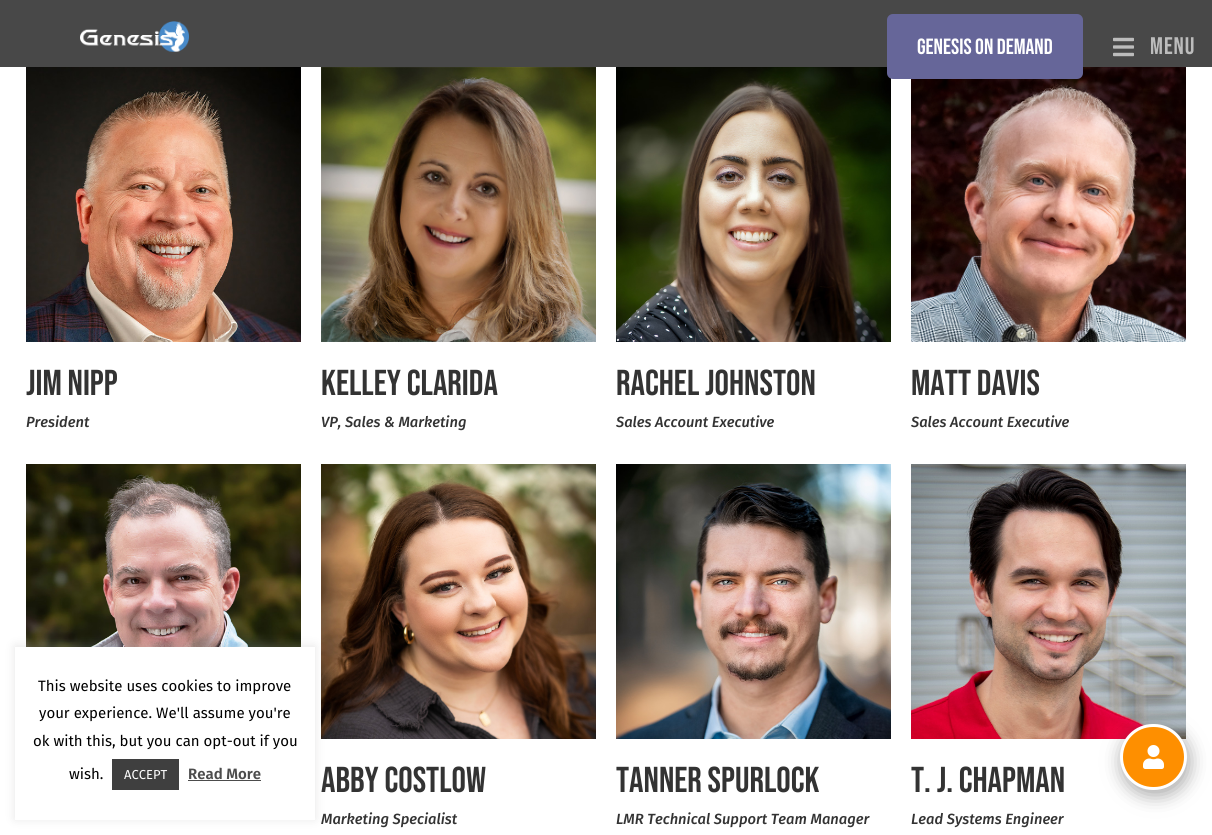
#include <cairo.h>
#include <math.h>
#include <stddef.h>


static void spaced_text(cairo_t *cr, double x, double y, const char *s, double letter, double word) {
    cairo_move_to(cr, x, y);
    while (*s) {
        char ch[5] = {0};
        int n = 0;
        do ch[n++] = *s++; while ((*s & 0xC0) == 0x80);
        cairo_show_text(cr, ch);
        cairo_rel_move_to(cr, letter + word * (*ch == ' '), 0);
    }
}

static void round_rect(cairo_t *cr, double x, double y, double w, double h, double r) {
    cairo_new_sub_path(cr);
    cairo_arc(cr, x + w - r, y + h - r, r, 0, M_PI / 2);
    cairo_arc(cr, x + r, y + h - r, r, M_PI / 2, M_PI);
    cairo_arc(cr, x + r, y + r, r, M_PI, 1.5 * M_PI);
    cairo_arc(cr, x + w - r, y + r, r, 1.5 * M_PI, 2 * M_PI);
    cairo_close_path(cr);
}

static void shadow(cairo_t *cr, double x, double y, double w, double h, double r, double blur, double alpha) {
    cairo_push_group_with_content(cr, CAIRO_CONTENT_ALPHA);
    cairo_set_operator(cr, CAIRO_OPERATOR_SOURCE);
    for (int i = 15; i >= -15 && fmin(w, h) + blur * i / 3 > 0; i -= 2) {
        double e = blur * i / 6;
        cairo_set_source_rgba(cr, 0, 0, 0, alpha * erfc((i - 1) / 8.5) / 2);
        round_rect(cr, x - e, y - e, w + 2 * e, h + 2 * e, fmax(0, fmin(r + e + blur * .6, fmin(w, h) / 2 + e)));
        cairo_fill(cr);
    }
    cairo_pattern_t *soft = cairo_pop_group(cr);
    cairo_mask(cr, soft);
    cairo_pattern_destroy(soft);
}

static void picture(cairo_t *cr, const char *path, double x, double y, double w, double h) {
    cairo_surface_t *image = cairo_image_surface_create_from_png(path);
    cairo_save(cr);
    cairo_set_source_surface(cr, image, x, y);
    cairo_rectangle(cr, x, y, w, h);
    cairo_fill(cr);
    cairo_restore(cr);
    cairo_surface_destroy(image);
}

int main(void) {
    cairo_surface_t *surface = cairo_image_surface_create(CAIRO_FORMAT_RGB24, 1212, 835);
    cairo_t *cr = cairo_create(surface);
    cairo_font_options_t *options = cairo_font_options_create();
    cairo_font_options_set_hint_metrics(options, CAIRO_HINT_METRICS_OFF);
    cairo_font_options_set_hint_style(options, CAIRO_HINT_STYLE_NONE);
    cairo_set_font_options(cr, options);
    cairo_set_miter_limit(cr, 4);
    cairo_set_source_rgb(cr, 1, 1, 1);
    cairo_paint(cr);
    cairo_set_source_rgb(cr, 0.282, 0.282, 0.282);
    cairo_rectangle(cr, 0, 0, 1212, 67);
    cairo_fill(cr);
    picture(cr, "img1.png", 80, 21, 109, 31);
    picture(cr, "img6.png", 616, 67, 275, 275);
    picture(cr, "img7.png", 911, 67, 275, 275);
    cairo_set_source_rgb(cr, 0.4, 0.4, 0.6);
    round_rect(cr, 887, 14, 196, 65, 6);
    cairo_fill(cr);
    cairo_select_font_face(cr, "Bebas Neue", CAIRO_FONT_SLANT_NORMAL, CAIRO_FONT_WEIGHT_NORMAL);
    cairo_set_font_size(cr, 22);
    cairo_set_source_rgb(cr, 1, 1, 1);
    cairo_move_to(cr, 917, 54);
    cairo_show_text(cr, "Genesis On Demand");
    picture(cr, "img2.png", 1113, 37, 21, 20);
    cairo_set_font_size(cr, 24);
    cairo_set_source_rgb(cr, 0.737, 0.737, 0.737);
    spaced_text(cr, 1150, 54, "MENU", 1, 0);
    picture(cr, "img11.png", 911, 464, 275, 275);
    cairo_set_source_rgb(cr, 0.29, 0.29, 0.29);
    shadow(cr, 1122, 729, 67, 66, 33, 9.5, 0.5);
    cairo_set_source_rgb(cr, 0.996, 0.561, 0);
    round_rect(cr, 1121.5, 725.5, 64, 63, 31.5);
    cairo_fill_preserve(cr);
    cairo_set_source_rgb(cr, 1, 1, 1);
    cairo_set_line_width(cr, 3);
    cairo_stroke(cr);
    picture(cr, "img3.png", 1143, 745, 21, 24);
    picture(cr, "img4.png", 26, 67, 275, 275);
    cairo_set_font_size(cr, 36);
    cairo_set_source_rgb(cr, 0.2, 0.2, 0.2);
    cairo_move_to(cr, 26, 395);
    cairo_show_text(cr, "Jim Nipp");
    cairo_select_font_face(cr, "Fira Sans Medium", CAIRO_FONT_SLANT_ITALIC, CAIRO_FONT_WEIGHT_NORMAL);
    cairo_set_font_size(cr, 14.75);
    cairo_move_to(cr, 26, 427);
    cairo_show_text(cr, "President");
    picture(cr, "img5.png", 321, 67, 275, 275);
    cairo_select_font_face(cr, "Bebas Neue", CAIRO_FONT_SLANT_NORMAL, CAIRO_FONT_WEIGHT_NORMAL);
    cairo_set_font_size(cr, 36);
    cairo_move_to(cr, 321, 395);
    cairo_show_text(cr, "Kelley Clarida");
    cairo_select_font_face(cr, "Fira Sans Medium", CAIRO_FONT_SLANT_ITALIC, CAIRO_FONT_WEIGHT_NORMAL);
    cairo_set_font_size(cr, 14.75);
    cairo_move_to(cr, 321, 427);
    cairo_show_text(cr, "VP, Sales & Marketing");
    cairo_select_font_face(cr, "Bebas Neue", CAIRO_FONT_SLANT_NORMAL, CAIRO_FONT_WEIGHT_NORMAL);
    cairo_set_font_size(cr, 36);
    cairo_move_to(cr, 616, 395);
    cairo_show_text(cr, "Rachel Johnston");
    cairo_select_font_face(cr, "Fira Sans Medium", CAIRO_FONT_SLANT_ITALIC, CAIRO_FONT_WEIGHT_NORMAL);
    cairo_set_font_size(cr, 14.75);
    cairo_move_to(cr, 616, 427);
    cairo_show_text(cr, "Sales Account Executive");
    cairo_select_font_face(cr, "Bebas Neue", CAIRO_FONT_SLANT_NORMAL, CAIRO_FONT_WEIGHT_NORMAL);
    cairo_set_font_size(cr, 36);
    cairo_move_to(cr, 911, 395);
    cairo_show_text(cr, "Matt Davis");
    cairo_select_font_face(cr, "Fira Sans Medium", CAIRO_FONT_SLANT_ITALIC, CAIRO_FONT_WEIGHT_NORMAL);
    cairo_set_font_size(cr, 14.75);
    cairo_move_to(cr, 911, 427);
    cairo_show_text(cr, "Sales Account Executive");
    picture(cr, "img8.png", 26, 464, 275, 183);
    picture(cr, "img9.png", 321, 464, 275, 275);
    cairo_select_font_face(cr, "Bebas Neue", CAIRO_FONT_SLANT_NORMAL, CAIRO_FONT_WEIGHT_NORMAL);
    cairo_set_font_size(cr, 36);
    cairo_move_to(cr, 321, 792);
    cairo_show_text(cr, "Abby Costlow");
    cairo_select_font_face(cr, "Fira Sans Medium", CAIRO_FONT_SLANT_ITALIC, CAIRO_FONT_WEIGHT_NORMAL);
    cairo_set_font_size(cr, 14.75);
    cairo_move_to(cr, 321, 824);
    cairo_show_text(cr, "Marketing Specialist");
    picture(cr, "img10.png", 616, 464, 275, 275);
    cairo_select_font_face(cr, "Bebas Neue", CAIRO_FONT_SLANT_NORMAL, CAIRO_FONT_WEIGHT_NORMAL);
    cairo_set_font_size(cr, 36);
    cairo_move_to(cr, 616, 792);
    cairo_show_text(cr, "Tanner Spurlock");
    cairo_select_font_face(cr, "Fira Sans Medium", CAIRO_FONT_SLANT_ITALIC, CAIRO_FONT_WEIGHT_NORMAL);
    cairo_set_font_size(cr, 14.75);
    cairo_move_to(cr, 616, 824);
    cairo_show_text(cr, "LMR Technical Support Team Manager");
    cairo_select_font_face(cr, "Bebas Neue", CAIRO_FONT_SLANT_NORMAL, CAIRO_FONT_WEIGHT_NORMAL);
    cairo_set_font_size(cr, 36);
    cairo_move_to(cr, 911, 792);
    cairo_show_text(cr, "T. J. Chapman");
    cairo_select_font_face(cr, "Fira Sans Medium", CAIRO_FONT_SLANT_ITALIC, CAIRO_FONT_WEIGHT_NORMAL);
    cairo_set_font_size(cr, 14.75);
    cairo_move_to(cr, 911, 824);
    cairo_show_text(cr, "Lead Systems Engineer");
    cairo_set_source_rgb(cr, 0.675, 0.671, 0.671);
    shadow(cr, 15, 646, 300, 173, 0, 5, 0.3);
    cairo_set_source_rgb(cr, 1, 1, 1);
    cairo_rectangle(cr, 15, 647, 300, 173);
    cairo_fill(cr);
    cairo_select_font_face(cr, "Fira Sans", CAIRO_FONT_SLANT_NORMAL, CAIRO_FONT_WEIGHT_NORMAL);
    cairo_set_font_size(cr, 15);
    cairo_set_source_rgb(cr, 0, 0, 0);
    cairo_move_to(cr, 38, 691);
    cairo_show_text(cr, "This website uses cookies to improve");
    cairo_move_to(cr, 39, 718);
    cairo_show_text(cr, "your experience. We'll assume you're");
    cairo_move_to(cr, 33, 746);
    cairo_show_text(cr, "ok with this, but you can opt-out if you");
    cairo_move_to(cr, 69, 779);
    cairo_show_text(cr, "wish.");
    cairo_set_source_rgb(cr, 0.247, 0.247, 0.247);
    cairo_rectangle(cr, 112, 759, 67, 31);
    cairo_fill(cr);
    cairo_set_font_size(cr, 13);
    cairo_set_source_rgb(cr, 1, 1, 1);
    cairo_move_to(cr, 124, 779);
    cairo_show_text(cr, "ACCEPT");
    cairo_select_font_face(cr, "Fira Sans SemiBold", CAIRO_FONT_SLANT_NORMAL, CAIRO_FONT_WEIGHT_NORMAL);
    cairo_set_font_size(cr, 15);
    cairo_set_source_rgb(cr, 0.298, 0.298, 0.298);
    cairo_move_to(cr, 188, 779);
    cairo_show_text(cr, "Read More");
    cairo_rectangle(cr, 188, 780, 73, 1);
    cairo_fill(cr);
    cairo_surface_write_to_png(surface, "page.png");
    cairo_font_options_destroy(options);
    cairo_destroy(cr);
    cairo_surface_destroy(surface);
    return 0;
}
